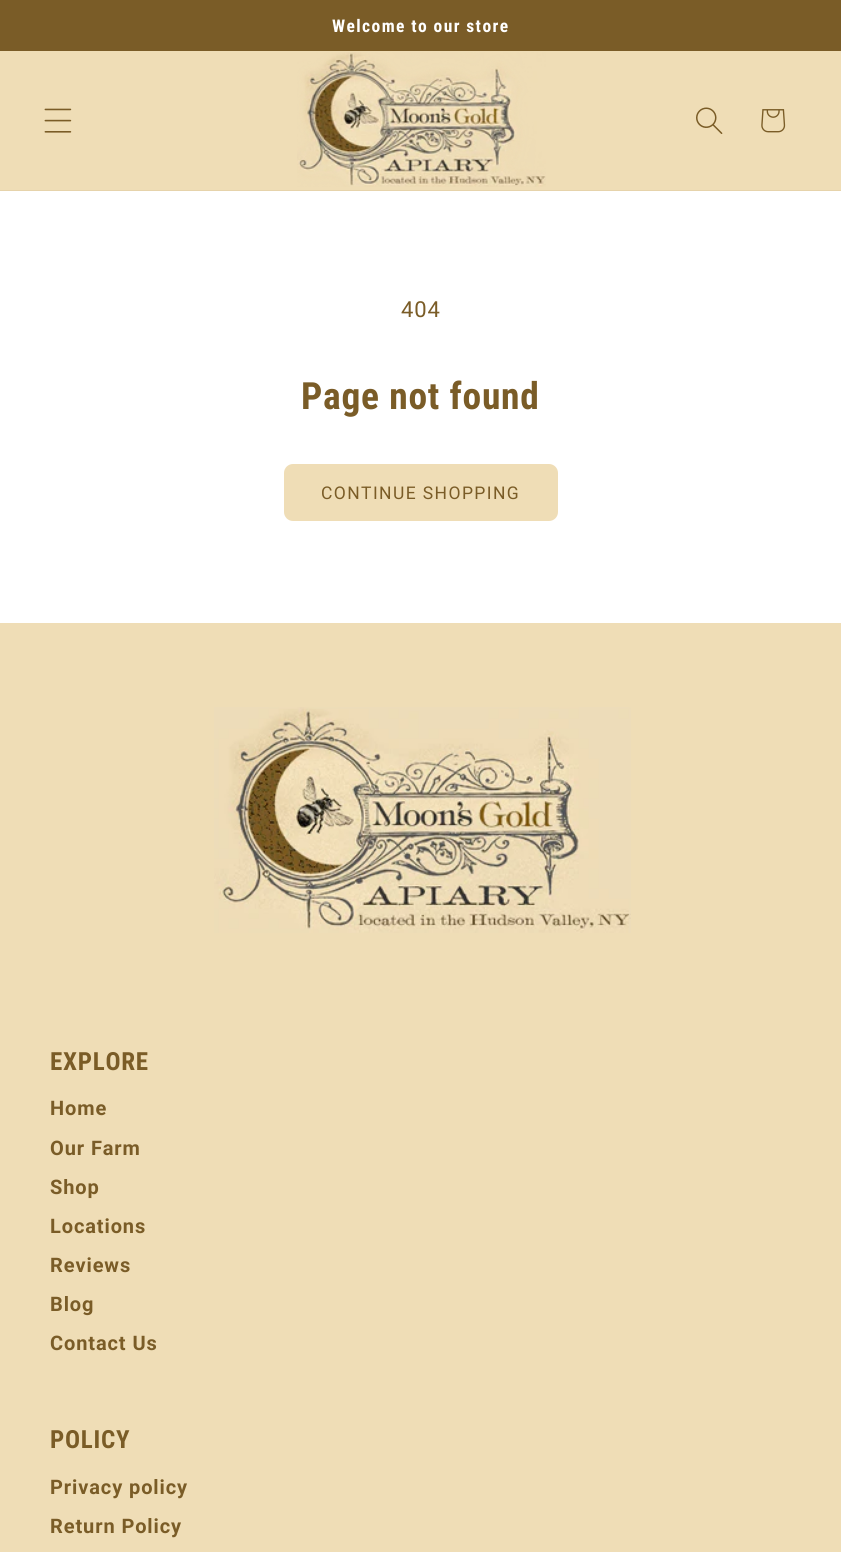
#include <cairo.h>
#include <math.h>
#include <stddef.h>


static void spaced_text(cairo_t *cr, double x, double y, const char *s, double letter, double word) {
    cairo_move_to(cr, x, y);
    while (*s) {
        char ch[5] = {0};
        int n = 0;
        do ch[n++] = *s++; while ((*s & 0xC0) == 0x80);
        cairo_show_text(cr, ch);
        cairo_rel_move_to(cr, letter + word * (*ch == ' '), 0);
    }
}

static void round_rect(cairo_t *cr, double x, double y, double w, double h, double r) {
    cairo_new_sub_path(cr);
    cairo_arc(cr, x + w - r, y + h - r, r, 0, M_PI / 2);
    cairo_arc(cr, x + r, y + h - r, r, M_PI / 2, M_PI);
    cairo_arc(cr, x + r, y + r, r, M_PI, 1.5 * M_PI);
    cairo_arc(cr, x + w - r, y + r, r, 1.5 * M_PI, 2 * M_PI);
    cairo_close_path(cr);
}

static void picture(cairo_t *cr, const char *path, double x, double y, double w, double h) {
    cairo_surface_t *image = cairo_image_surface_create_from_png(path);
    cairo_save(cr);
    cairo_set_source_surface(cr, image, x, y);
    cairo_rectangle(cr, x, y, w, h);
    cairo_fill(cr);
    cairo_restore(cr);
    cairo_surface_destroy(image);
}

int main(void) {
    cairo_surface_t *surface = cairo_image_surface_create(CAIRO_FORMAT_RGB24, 841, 1552);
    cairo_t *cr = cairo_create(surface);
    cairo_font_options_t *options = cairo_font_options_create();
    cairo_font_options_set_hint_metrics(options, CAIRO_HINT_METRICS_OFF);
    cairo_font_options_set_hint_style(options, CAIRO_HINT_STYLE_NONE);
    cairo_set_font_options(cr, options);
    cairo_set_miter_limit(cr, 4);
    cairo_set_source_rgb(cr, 1, 1, 1);
    cairo_paint(cr);
    cairo_set_source_rgb(cr, 0.478, 0.361, 0.153);
    cairo_rectangle(cr, 0, 0, 841, 51);
    cairo_fill(cr);
    cairo_select_font_face(cr, "Roboto Condensed", CAIRO_FONT_SLANT_NORMAL, CAIRO_FONT_WEIGHT_BOLD);
    cairo_set_font_size(cr, 17.5);
    cairo_set_source_rgb(cr, 1, 1, 1);
    spaced_text(cr, 332, 32, "Welcome to our store", 1.4, 0);
    cairo_set_source_rgb(cr, 0.937, 0.867, 0.714);
    cairo_rectangle(cr, 0, 51, 841, 139);
    cairo_fill(cr);
    cairo_set_source_rgb(cr, 0.902, 0.827, 0.671);
    cairo_rectangle(cr, 0, 190, 841, 1);
    cairo_fill(cr);
    picture(cr, "img1.png", 44, 108, 28, 25);
    picture(cr, "img2.png", 297, 52, 249, 135);
    picture(cr, "img3.png", 696, 107, 27, 27);
    picture(cr, "img4.png", 761, 109, 25, 24);
    cairo_select_font_face(cr, "Roboto", CAIRO_FONT_SLANT_NORMAL, CAIRO_FONT_WEIGHT_NORMAL);
    cairo_set_font_size(cr, 22);
    cairo_set_source_rgb(cr, 0.478, 0.361, 0.153);
    spaced_text(cr, 401, 317, "404", 0.9, 0);
    cairo_select_font_face(cr, "Roboto Condensed", CAIRO_FONT_SLANT_NORMAL, CAIRO_FONT_WEIGHT_BOLD);
    cairo_set_font_size(cr, 37.5);
    spaced_text(cr, 301, 409, "Page not found", 0.75, 0);
    cairo_set_source_rgb(cr, 0.937, 0.867, 0.714);
    round_rect(cr, 284, 464, 274, 57, 9);
    cairo_fill(cr);
    cairo_select_font_face(cr, "Roboto", CAIRO_FONT_SLANT_NORMAL, CAIRO_FONT_WEIGHT_NORMAL);
    cairo_set_font_size(cr, 17.5);
    cairo_set_source_rgb(cr, 0.478, 0.361, 0.153);
    spaced_text(cr, 321, 499, "CONTINUE SHOPPING", 1.4, 0);
    cairo_set_source_rgb(cr, 0.937, 0.867, 0.714);
    cairo_rectangle(cr, 0, 623, 841, 929);
    cairo_fill(cr);
    picture(cr, "img5.png", 214, 707, 417, 226);
    cairo_select_font_face(cr, "Roboto Condensed", CAIRO_FONT_SLANT_NORMAL, CAIRO_FONT_WEIGHT_BOLD);
    cairo_set_font_size(cr, 25);
    cairo_set_source_rgb(cr, 0.478, 0.361, 0.153);
    spaced_text(cr, 50, 1070, "EXPLORE", 0.75, 0);
    cairo_select_font_face(cr, "Roboto", CAIRO_FONT_SLANT_NORMAL, CAIRO_FONT_WEIGHT_BOLD);
    cairo_set_font_size(cr, 20);
    spaced_text(cr, 50, 1115, "Home", 0.9, 0);
    spaced_text(cr, 50, 1155, "Our Farm", 0.9, 0);
    spaced_text(cr, 50, 1194, "Shop", 0.9, 0);
    spaced_text(cr, 50, 1233, "Locations", 0.9, 0);
    spaced_text(cr, 50, 1272, "Reviews", 0.9, 0);
    spaced_text(cr, 50, 1311, "Blog", 0.9, 0);
    spaced_text(cr, 50, 1350, "Contact Us", 0.9, 0);
    cairo_select_font_face(cr, "Roboto Condensed", CAIRO_FONT_SLANT_NORMAL, CAIRO_FONT_WEIGHT_BOLD);
    cairo_set_font_size(cr, 25);
    spaced_text(cr, 50, 1448, "POLICY", 0.75, 0);
    cairo_select_font_face(cr, "Roboto", CAIRO_FONT_SLANT_NORMAL, CAIRO_FONT_WEIGHT_BOLD);
    cairo_set_font_size(cr, 20);
    spaced_text(cr, 50, 1494, "Privacy policy", 0.9, 0);
    spaced_text(cr, 50, 1533, "Return Policy", 0.9, 0);
    cairo_surface_write_to_png(surface, "page.png");
    cairo_font_options_destroy(options);
    cairo_destroy(cr);
    cairo_surface_destroy(surface);
    return 0;
}
